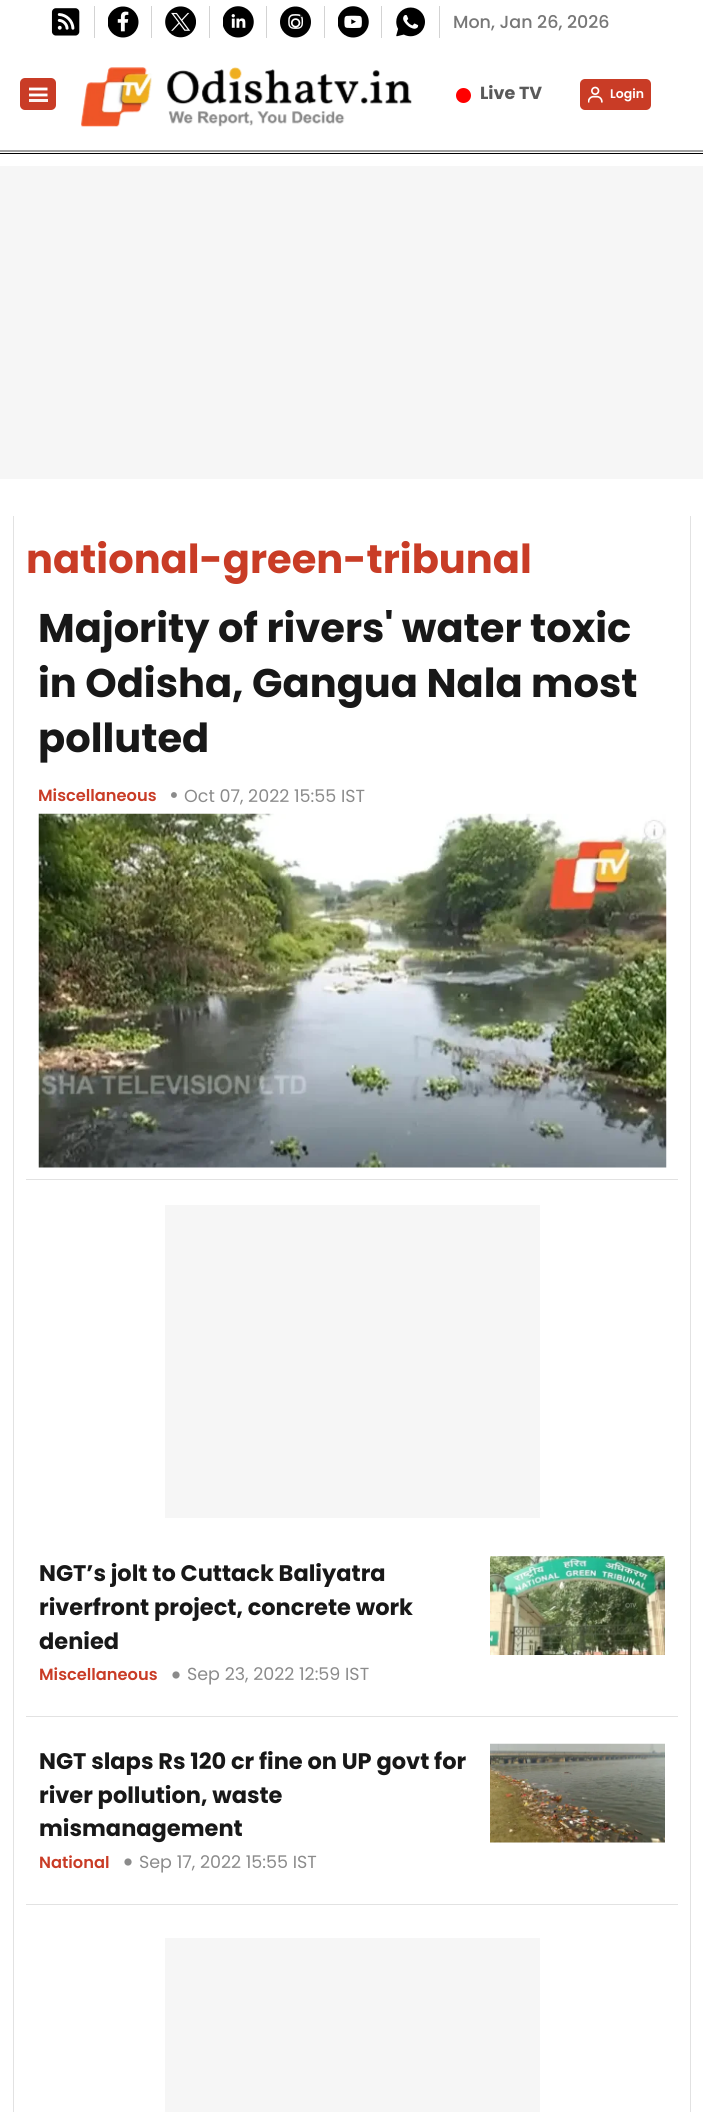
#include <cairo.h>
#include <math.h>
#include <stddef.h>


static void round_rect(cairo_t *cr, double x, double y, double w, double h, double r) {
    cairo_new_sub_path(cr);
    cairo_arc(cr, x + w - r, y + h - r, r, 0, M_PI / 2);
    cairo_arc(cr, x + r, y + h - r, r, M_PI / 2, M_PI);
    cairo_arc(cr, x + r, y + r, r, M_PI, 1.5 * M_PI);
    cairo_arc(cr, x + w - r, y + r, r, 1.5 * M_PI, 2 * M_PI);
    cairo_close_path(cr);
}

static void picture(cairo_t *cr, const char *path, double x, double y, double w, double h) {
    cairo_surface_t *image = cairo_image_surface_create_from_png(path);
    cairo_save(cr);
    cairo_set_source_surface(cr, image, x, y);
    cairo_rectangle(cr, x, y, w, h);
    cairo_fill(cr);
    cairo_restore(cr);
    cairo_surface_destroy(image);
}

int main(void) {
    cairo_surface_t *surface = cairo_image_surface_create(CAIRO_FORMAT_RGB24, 703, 2112);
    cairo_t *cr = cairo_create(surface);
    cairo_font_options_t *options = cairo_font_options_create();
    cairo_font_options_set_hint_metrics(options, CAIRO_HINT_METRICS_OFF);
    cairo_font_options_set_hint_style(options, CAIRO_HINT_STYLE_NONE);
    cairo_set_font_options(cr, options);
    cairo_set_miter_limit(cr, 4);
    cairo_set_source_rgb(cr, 1, 1, 1);
    cairo_paint(cr);
    cairo_set_source_rgb(cr, 0, 0, 0);
    cairo_rectangle(cr, 0, 153, 703, 1);
    cairo_fill(cr);
    cairo_set_source_rgb(cr, 0.827, 0.827, 0.827);
    cairo_rectangle(cr, 94, 6, 1, 32);
    cairo_fill(cr);
    picture(cr, "img1.png", 51, 8, 29, 28);
    cairo_rectangle(cr, 151, 6, 1, 32);
    cairo_fill(cr);
    picture(cr, "img2.png", 108, 6, 31, 32);
    cairo_rectangle(cr, 209, 6, 1, 32);
    cairo_fill(cr);
    picture(cr, "img3.png", 165, 6, 31, 32);
    cairo_rectangle(cr, 266, 6, 1, 32);
    cairo_fill(cr);
    picture(cr, "img4.png", 223, 6, 31, 32);
    cairo_rectangle(cr, 324, 6, 1, 32);
    cairo_fill(cr);
    picture(cr, "img5.png", 280, 6, 31, 32);
    cairo_rectangle(cr, 381, 6, 1, 32);
    cairo_fill(cr);
    picture(cr, "img6.png", 338, 6, 31, 32);
    cairo_rectangle(cr, 439, 6, 1, 32);
    cairo_fill(cr);
    picture(cr, "img7.png", 396, 7, 29, 30);
    cairo_select_font_face(cr, "Poppins Medium", CAIRO_FONT_SLANT_NORMAL, CAIRO_FONT_WEIGHT_NORMAL);
    cairo_set_font_size(cr, 17.5);
    cairo_set_source_rgb(cr, 0.467, 0.467, 0.467);
    cairo_move_to(cr, 453, 28);
    cairo_show_text(cr, "Mon, Jan 26, 2026");
    cairo_set_source_rgb(cr, 0.788, 0.235, 0.149);
    round_rect(cr, 20, 78, 36, 32, 5);
    cairo_fill(cr);
    cairo_new_path(cr);
    cairo_move_to(cr, 29, 95);
    cairo_line_to(cr, 47.5, 95);
    cairo_move_to(cr, 29, 89);
    cairo_line_to(cr, 47.5, 89);
    cairo_set_source_rgb(cr, 1, 1, 1);
    cairo_set_line_width(cr, 2.8);
    cairo_stroke(cr);
    cairo_set_source_rgb(cr, 0.984, 0.949, 0.945);
    cairo_rectangle(cr, 29, 99, 19, 3);
    cairo_fill(cr);
    picture(cr, "img8.png", 81, 67, 331, 60);
    cairo_set_source_rgb(cr, 1, 0, 0);
    cairo_arc(cr, 463.5, 95.5, 7.5, 0, 2 * M_PI);
    cairo_fill(cr);
    cairo_select_font_face(cr, "Poppins", CAIRO_FONT_SLANT_NORMAL, CAIRO_FONT_WEIGHT_BOLD);
    cairo_set_source_rgb(cr, 0.349, 0.349, 0.349);
    cairo_move_to(cr, 480, 99);
    cairo_show_text(cr, "Live TV");
    cairo_set_source_rgb(cr, 0.788, 0.235, 0.149);
    round_rect(cr, 580, 79, 71, 31, 5);
    cairo_fill(cr);
    picture(cr, "img9.png", 588, 86, 15, 17);
    cairo_select_font_face(cr, "Poppins SemiBold", CAIRO_FONT_SLANT_NORMAL, CAIRO_FONT_WEIGHT_NORMAL);
    cairo_set_font_size(cr, 12.5);
    cairo_set_source_rgb(cr, 1, 1, 1);
    cairo_move_to(cr, 610, 98);
    cairo_show_text(cr, "Login");
    cairo_set_source_rgb(cr, 0.627, 0.627, 0.627);
    cairo_rectangle(cr, 0, 150, 703, 2);
    cairo_fill(cr);
    cairo_set_source_rgb(cr, 0.961, 0.961, 0.961);
    cairo_rectangle(cr, 0, 166, 703, 313);
    cairo_fill(cr);
    cairo_set_source_rgb(cr, 0.886, 0.886, 0.886);
    cairo_rectangle(cr, 690, 516, 1, 1596);
    cairo_fill(cr);
    cairo_rectangle(cr, 13, 516, 1, 1596);
    cairo_fill(cr);
    cairo_select_font_face(cr, "Poppins", CAIRO_FONT_SLANT_NORMAL, CAIRO_FONT_WEIGHT_BOLD);
    cairo_set_font_size(cr, 40);
    cairo_set_source_rgb(cr, 0.788, 0.235, 0.149);
    cairo_move_to(cr, 26, 573);
    cairo_show_text(cr, "national-green-tribunal");
    cairo_set_source_rgb(cr, 0.886, 0.886, 0.886);
    cairo_rectangle(cr, 26, 1179, 652, 1);
    cairo_fill(cr);
    cairo_set_source_rgb(cr, 0.094, 0.094, 0.094);
    cairo_move_to(cr, 38, 642);
    cairo_show_text(cr, "Majority of rivers' water toxic");
    cairo_move_to(cr, 38, 697);
    cairo_show_text(cr, "in Odisha, Gangua Nala most");
    cairo_move_to(cr, 38, 752);
    cairo_show_text(cr, "polluted");
    cairo_select_font_face(cr, "Poppins SemiBold", CAIRO_FONT_SLANT_NORMAL, CAIRO_FONT_WEIGHT_NORMAL);
    cairo_set_font_size(cr, 16.25);
    cairo_set_source_rgb(cr, 0.788, 0.235, 0.149);
    cairo_move_to(cr, 38, 801);
    cairo_show_text(cr, "Miscellaneous");
    cairo_select_font_face(cr, "Poppins", CAIRO_FONT_SLANT_NORMAL, CAIRO_FONT_WEIGHT_NORMAL);
    cairo_set_font_size(cr, 24);
    cairo_set_source_rgb(cr, 0.545, 0.545, 0.545);
    cairo_move_to(cr, 169, 803);
    cairo_show_text(cr, "•");
    cairo_set_font_size(cr, 17.5);
    cairo_move_to(cr, 184, 802);
    cairo_show_text(cr, "Oct 07, 2022 15:55 IST");
    picture(cr, "img10.png", 38, 813, 629, 355);
    cairo_set_source_rgb(cr, 0.961, 0.961, 0.961);
    cairo_rectangle(cr, 165, 1205, 375, 313);
    cairo_fill(cr);
    cairo_set_source_rgb(cr, 0.886, 0.886, 0.886);
    cairo_rectangle(cr, 26, 1716, 652, 1);
    cairo_fill(cr);
    cairo_select_font_face(cr, "Poppins", CAIRO_FONT_SLANT_NORMAL, CAIRO_FONT_WEIGHT_BOLD);
    cairo_set_font_size(cr, 22.5);
    cairo_set_source_rgb(cr, 0.094, 0.094, 0.094);
    cairo_move_to(cr, 39, 1581);
    cairo_show_text(cr, "NGT’s jolt to Cuttack Baliyatra");
    cairo_move_to(cr, 39, 1615);
    cairo_show_text(cr, "riverfront project, concrete work");
    cairo_move_to(cr, 39, 1649);
    cairo_show_text(cr, "denied");
    cairo_select_font_face(cr, "Poppins SemiBold", CAIRO_FONT_SLANT_NORMAL, CAIRO_FONT_WEIGHT_NORMAL);
    cairo_set_font_size(cr, 16.25);
    cairo_set_source_rgb(cr, 0.788, 0.235, 0.149);
    cairo_move_to(cr, 39, 1680);
    cairo_show_text(cr, "Miscellaneous");
    cairo_select_font_face(cr, "Poppins", CAIRO_FONT_SLANT_NORMAL, CAIRO_FONT_WEIGHT_BOLD);
    cairo_set_font_size(cr, 24);
    cairo_set_source_rgb(cr, 0.545, 0.545, 0.545);
    cairo_move_to(cr, 170, 1683);
    cairo_show_text(cr, "•");
    cairo_select_font_face(cr, "Poppins", CAIRO_FONT_SLANT_NORMAL, CAIRO_FONT_WEIGHT_NORMAL);
    cairo_set_font_size(cr, 17.5);
    cairo_move_to(cr, 187, 1680);
    cairo_show_text(cr, "Sep 23, 2022 12:59 IST");
    picture(cr, "img11.png", 490, 1556, 175, 99);
    cairo_set_source_rgb(cr, 0.886, 0.886, 0.886);
    cairo_rectangle(cr, 26, 1904, 652, 1);
    cairo_fill(cr);
    cairo_select_font_face(cr, "Poppins", CAIRO_FONT_SLANT_NORMAL, CAIRO_FONT_WEIGHT_BOLD);
    cairo_set_font_size(cr, 22.5);
    cairo_set_source_rgb(cr, 0.094, 0.094, 0.094);
    cairo_move_to(cr, 39, 1769);
    cairo_show_text(cr, "NGT slaps Rs 120 cr fine on UP govt for");
    cairo_move_to(cr, 39, 1803);
    cairo_show_text(cr, "river pollution, waste");
    cairo_move_to(cr, 39, 1836);
    cairo_show_text(cr, "mismanagement");
    cairo_select_font_face(cr, "Poppins SemiBold", CAIRO_FONT_SLANT_NORMAL, CAIRO_FONT_WEIGHT_NORMAL);
    cairo_set_font_size(cr, 16.25);
    cairo_set_source_rgb(cr, 0.788, 0.235, 0.149);
    cairo_move_to(cr, 39, 1868);
    cairo_show_text(cr, "National");
    cairo_select_font_face(cr, "Poppins", CAIRO_FONT_SLANT_NORMAL, CAIRO_FONT_WEIGHT_BOLD);
    cairo_set_font_size(cr, 24);
    cairo_set_source_rgb(cr, 0.545, 0.545, 0.545);
    cairo_move_to(cr, 122, 1870);
    cairo_show_text(cr, "•");
    cairo_select_font_face(cr, "Poppins", CAIRO_FONT_SLANT_NORMAL, CAIRO_FONT_WEIGHT_NORMAL);
    cairo_set_font_size(cr, 17.5);
    cairo_move_to(cr, 139, 1868);
    cairo_show_text(cr, "Sep 17, 2022 15:55 IST");
    picture(cr, "img12.png", 490, 1743, 175, 100);
    cairo_set_source_rgb(cr, 0.961, 0.961, 0.961);
    cairo_rectangle(cr, 165, 1938, 375, 174);
    cairo_fill(cr);
    cairo_surface_write_to_png(surface, "page.png");
    cairo_font_options_destroy(options);
    cairo_destroy(cr);
    cairo_surface_destroy(surface);
    return 0;
}
